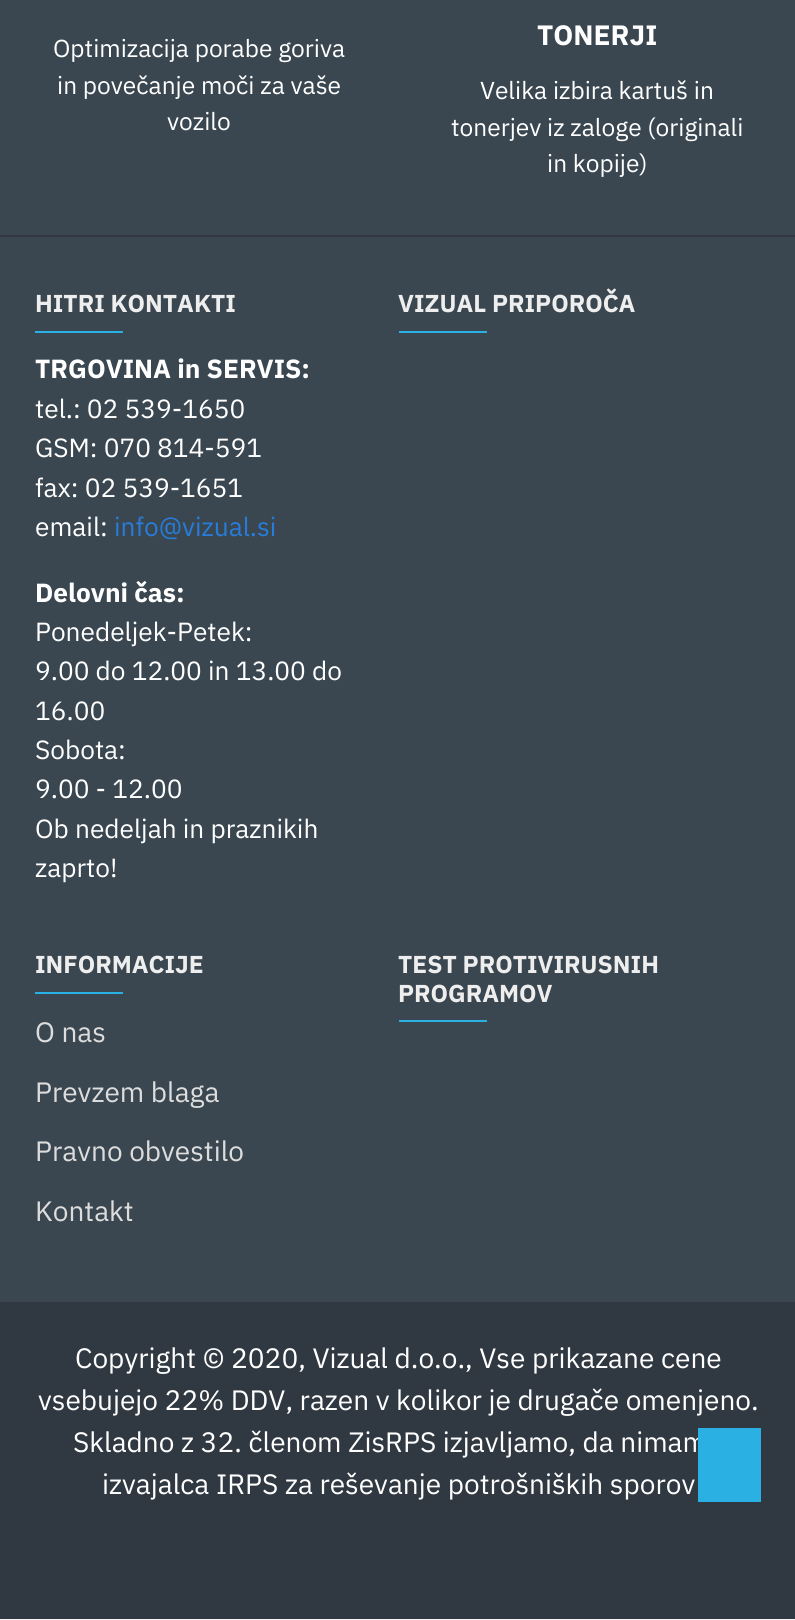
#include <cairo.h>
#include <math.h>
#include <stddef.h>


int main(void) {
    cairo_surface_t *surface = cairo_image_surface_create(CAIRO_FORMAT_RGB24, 795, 1620);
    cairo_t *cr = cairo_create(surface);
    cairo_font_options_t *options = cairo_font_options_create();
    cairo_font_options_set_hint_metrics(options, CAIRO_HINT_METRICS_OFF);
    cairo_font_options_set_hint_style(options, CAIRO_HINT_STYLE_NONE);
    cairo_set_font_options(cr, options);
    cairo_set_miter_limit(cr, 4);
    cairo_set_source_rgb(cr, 0.961, 0.961, 0.961);
    cairo_paint(cr);
    cairo_set_source_rgb(cr, 0.227, 0.278, 0.314);
    cairo_rectangle(cr, 0, 0, 795, 1302);
    cairo_fill(cr);
    cairo_select_font_face(cr, "IBM Plex Sans", CAIRO_FONT_SLANT_NORMAL, CAIRO_FONT_WEIGHT_NORMAL);
    cairo_set_font_size(cr, 24.5);
    cairo_set_source_rgb(cr, 1, 1, 1);
    cairo_move_to(cr, 53, 57);
    cairo_show_text(cr, "Optimizacija porabe goriva");
    cairo_move_to(cr, 57, 94);
    cairo_show_text(cr, "in povečanje moči za vaše");
    cairo_move_to(cr, 167, 130);
    cairo_show_text(cr, "vozilo");
    cairo_select_font_face(cr, "IBM Plex Sans", CAIRO_FONT_SLANT_NORMAL, CAIRO_FONT_WEIGHT_BOLD);
    cairo_set_font_size(cr, 28);
    cairo_move_to(cr, 537, 45);
    cairo_show_text(cr, "TONERJI");
    cairo_select_font_face(cr, "IBM Plex Sans", CAIRO_FONT_SLANT_NORMAL, CAIRO_FONT_WEIGHT_NORMAL);
    cairo_set_font_size(cr, 24.5);
    cairo_move_to(cr, 480, 99);
    cairo_show_text(cr, "Velika izbira kartuš in");
    cairo_move_to(cr, 451, 136);
    cairo_show_text(cr, "tonerjev iz zaloge (originali");
    cairo_move_to(cr, 547, 172);
    cairo_show_text(cr, "in kopije)");
    cairo_set_source_rgb(cr, 0.188, 0.22, 0.255);
    cairo_rectangle(cr, 0, 235, 795, 2);
    cairo_fill(cr);
    cairo_select_font_face(cr, "IBM Plex Sans", CAIRO_FONT_SLANT_NORMAL, CAIRO_FONT_WEIGHT_BOLD);
    cairo_set_source_rgb(cr, 0.933, 0.933, 0.933);
    cairo_move_to(cr, 35, 312);
    cairo_show_text(cr, "HITRI KONTAKTI");
    cairo_set_source_rgb(cr, 0.169, 0.69, 0.89);
    cairo_rectangle(cr, 35, 331, 88, 2);
    cairo_fill(cr);
    cairo_set_font_size(cr, 26.25);
    cairo_set_source_rgb(cr, 1, 1, 1);
    cairo_move_to(cr, 35, 378);
    cairo_show_text(cr, "TRGOVINA in SERVIS:");
    cairo_select_font_face(cr, "IBM Plex Sans", CAIRO_FONT_SLANT_NORMAL, CAIRO_FONT_WEIGHT_NORMAL);
    cairo_move_to(cr, 35, 418);
    cairo_show_text(cr, "tel.: 02 539-1650");
    cairo_move_to(cr, 35, 457);
    cairo_show_text(cr, "GSM: 070 814-591");
    cairo_move_to(cr, 35, 497);
    cairo_show_text(cr, "fax: 02 539-1651");
    cairo_move_to(cr, 35, 536);
    cairo_show_text(cr, "email:");
    cairo_set_source_rgb(cr, 0.153, 0.486, 0.851);
    cairo_move_to(cr, 114, 536);
    cairo_show_text(cr, "info@vizual.si");
    cairo_select_font_face(cr, "IBM Plex Sans", CAIRO_FONT_SLANT_NORMAL, CAIRO_FONT_WEIGHT_BOLD);
    cairo_set_source_rgb(cr, 1, 1, 1);
    cairo_move_to(cr, 35, 602);
    cairo_show_text(cr, "Delovni čas:");
    cairo_select_font_face(cr, "IBM Plex Sans", CAIRO_FONT_SLANT_NORMAL, CAIRO_FONT_WEIGHT_NORMAL);
    cairo_move_to(cr, 35, 641);
    cairo_show_text(cr, "Ponedeljek-Petek:");
    cairo_move_to(cr, 35, 680);
    cairo_show_text(cr, "9.00 do 12.00 in 13.00 do");
    cairo_move_to(cr, 35, 720);
    cairo_show_text(cr, "16.00");
    cairo_move_to(cr, 35, 759);
    cairo_show_text(cr, "Sobota:");
    cairo_move_to(cr, 35, 798);
    cairo_show_text(cr, "9.00 - 12.00");
    cairo_move_to(cr, 35, 838);
    cairo_show_text(cr, "Ob nedeljah in praznikih");
    cairo_move_to(cr, 35, 877);
    cairo_show_text(cr, "zaprto!");
    cairo_select_font_face(cr, "IBM Plex Sans", CAIRO_FONT_SLANT_NORMAL, CAIRO_FONT_WEIGHT_BOLD);
    cairo_set_font_size(cr, 24.5);
    cairo_set_source_rgb(cr, 0.933, 0.933, 0.933);
    cairo_move_to(cr, 398, 312);
    cairo_show_text(cr, "VIZUAL PRIPOROČA");
    cairo_set_source_rgb(cr, 0.169, 0.69, 0.89);
    cairo_rectangle(cr, 399, 331, 88, 2);
    cairo_fill(cr);
    cairo_set_source_rgb(cr, 0.933, 0.933, 0.933);
    cairo_move_to(cr, 35, 973);
    cairo_show_text(cr, "INFORMACIJE");
    cairo_set_source_rgb(cr, 0.169, 0.69, 0.89);
    cairo_rectangle(cr, 35, 992, 88, 2);
    cairo_fill(cr);
    cairo_select_font_face(cr, "IBM Plex Sans", CAIRO_FONT_SLANT_NORMAL, CAIRO_FONT_WEIGHT_NORMAL);
    cairo_set_font_size(cr, 28);
    cairo_set_source_rgb(cr, 0.867, 0.867, 0.867);
    cairo_move_to(cr, 35, 1042);
    cairo_show_text(cr, "O nas");
    cairo_move_to(cr, 35, 1102);
    cairo_show_text(cr, "Prevzem blaga");
    cairo_move_to(cr, 35, 1161);
    cairo_show_text(cr, "Pravno obvestilo");
    cairo_move_to(cr, 35, 1221);
    cairo_show_text(cr, "Kontakt");
    cairo_select_font_face(cr, "IBM Plex Sans", CAIRO_FONT_SLANT_NORMAL, CAIRO_FONT_WEIGHT_BOLD);
    cairo_set_font_size(cr, 24.5);
    cairo_set_source_rgb(cr, 0.933, 0.933, 0.933);
    cairo_move_to(cr, 398, 973);
    cairo_show_text(cr, "TEST PROTIVIRUSNIH");
    cairo_move_to(cr, 398, 1002);
    cairo_show_text(cr, "PROGRAMOV");
    cairo_set_source_rgb(cr, 0.169, 0.69, 0.89);
    cairo_rectangle(cr, 399, 1020, 88, 2);
    cairo_fill(cr);
    cairo_set_source_rgb(cr, 0.188, 0.22, 0.255);
    cairo_rectangle(cr, 0, 1302, 795, 317);
    cairo_fill(cr);
    cairo_select_font_face(cr, "IBM Plex Sans", CAIRO_FONT_SLANT_NORMAL, CAIRO_FONT_WEIGHT_NORMAL);
    cairo_set_font_size(cr, 28);
    cairo_set_source_rgb(cr, 1, 1, 1);
    cairo_move_to(cr, 75, 1368);
    cairo_show_text(cr, "Copyright © 2020, Vizual d.o.o., Vse prikazane cene");
    cairo_move_to(cr, 38, 1410);
    cairo_show_text(cr, "vsebujejo 22% DDV, razen v kolikor je drugače omenjeno.");
    cairo_move_to(cr, 73, 1452);
    cairo_show_text(cr, "Skladno z 32. členom ZisRPS izjavljamo, da nimam");
    cairo_move_to(cr, 102, 1494);
    cairo_show_text(cr, "izvajalca IRPS za reševanje potrošniških sporov");
    cairo_set_source_rgb(cr, 0.169, 0.69, 0.89);
    cairo_rectangle(cr, 698, 1428, 63, 74);
    cairo_fill(cr);
    cairo_surface_write_to_png(surface, "page.png");
    cairo_font_options_destroy(options);
    cairo_destroy(cr);
    cairo_surface_destroy(surface);
    return 0;
}
